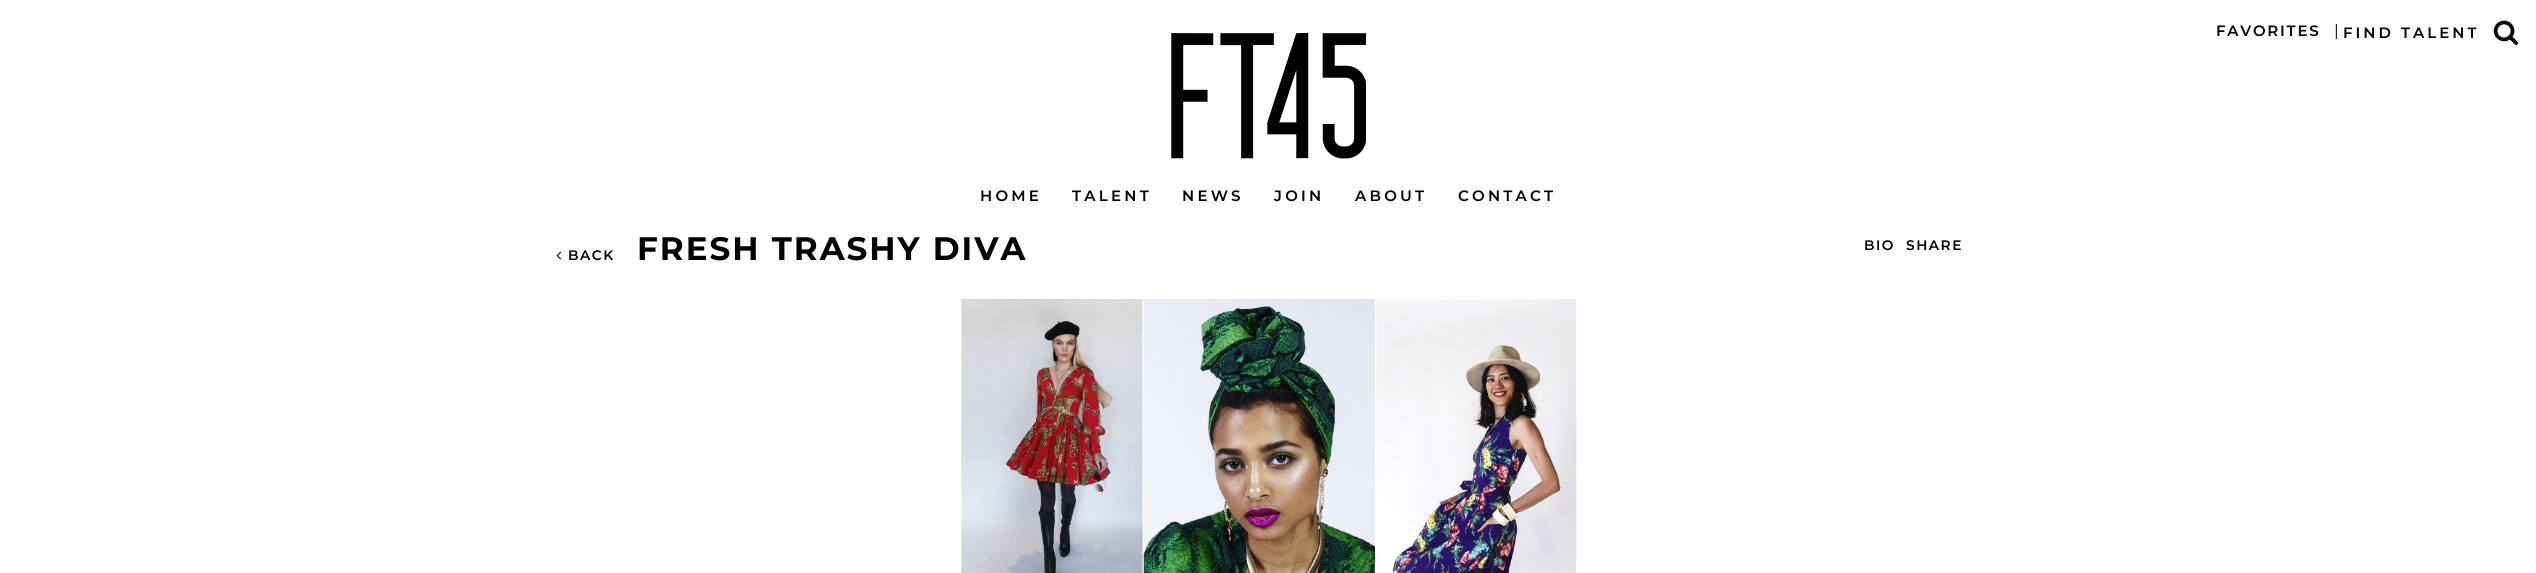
#include <cairo.h>
#include <math.h>
#include <stddef.h>


static void spaced_text(cairo_t *cr, double x, double y, const char *s, double letter, double word) {
    cairo_move_to(cr, x, y);
    while (*s) {
        char ch[5] = {0};
        int n = 0;
        do ch[n++] = *s++; while ((*s & 0xC0) == 0x80);
        cairo_show_text(cr, ch);
        cairo_rel_move_to(cr, letter + word * (*ch == ' '), 0);
    }
}

static void picture(cairo_t *cr, const char *path, double x, double y, double w, double h) {
    cairo_surface_t *image = cairo_image_surface_create_from_png(path);
    cairo_save(cr);
    cairo_set_source_surface(cr, image, x, y);
    cairo_rectangle(cr, x, y, w, h);
    cairo_fill(cr);
    cairo_restore(cr);
    cairo_surface_destroy(image);
}

int main(void) {
    cairo_surface_t *surface = cairo_image_surface_create(CAIRO_FORMAT_RGB24, 2536, 573);
    cairo_t *cr = cairo_create(surface);
    cairo_font_options_t *options = cairo_font_options_create();
    cairo_font_options_set_hint_metrics(options, CAIRO_HINT_METRICS_OFF);
    cairo_font_options_set_hint_style(options, CAIRO_HINT_STYLE_NONE);
    cairo_set_font_options(cr, options);
    cairo_set_miter_limit(cr, 4);
    cairo_set_source_rgb(cr, 1, 1, 1);
    cairo_paint(cr);
    cairo_select_font_face(cr, "Montserrat SemiBold", CAIRO_FONT_SLANT_NORMAL, CAIRO_FONT_WEIGHT_NORMAL);
    cairo_set_font_size(cr, 15);
    cairo_set_source_rgb(cr, 0, 0, 0);
    spaced_text(cr, 2216, 36, "FAVORITES", 1.75, 0);
    cairo_select_font_face(cr, "Montserrat", CAIRO_FONT_SLANT_NORMAL, CAIRO_FONT_WEIGHT_NORMAL);
    cairo_set_font_size(cr, 16);
    cairo_move_to(cr, 2334, 36);
    cairo_show_text(cr, "|");
    cairo_select_font_face(cr, "Montserrat SemiBold", CAIRO_FONT_SLANT_NORMAL, CAIRO_FONT_WEIGHT_NORMAL);
    cairo_set_font_size(cr, 15);
    spaced_text(cr, 980, 201, "HOME", 3.25, 0);
    spaced_text(cr, 1072, 201, "TALENT", 3.25, 0);
    spaced_text(cr, 1182, 201, "NEWS", 3.25, 0);
    spaced_text(cr, 1274, 201, "JOIN", 3.25, 0);
    spaced_text(cr, 1355, 201, "ABOUT", 3.25, 0);
    spaced_text(cr, 1458, 201, "CONTACT", 3.25, 0);
    picture(cr, "img1.png", 1171, 32, 195, 127);
    spaced_text(cr, 2343, 38, "FIND TALENT", 3, 0);
    picture(cr, "img2.png", 2493, 20, 26, 25);
    cairo_select_font_face(cr, "Montserrat", CAIRO_FONT_SLANT_NORMAL, CAIRO_FONT_WEIGHT_BOLD);
    cairo_set_font_size(cr, 32.5);
    spaced_text(cr, 637, 260, "FRESH TRASHY DIVA", 2, 0);
    cairo_select_font_face(cr, "Montserrat SemiBold", CAIRO_FONT_SLANT_NORMAL, CAIRO_FONT_WEIGHT_NORMAL);
    cairo_set_font_size(cr, 13.75);
    spaced_text(cr, 1864, 250, "BIO", 1.5, 0);
    spaced_text(cr, 1906, 250, "SHARE", 1.5, 0);
    picture(cr, "img3.png", 556, 251, 5, 9);
    spaced_text(cr, 568, 260, "BACK", 1.5, 0);
    picture(cr, "img4.png", 961, 299, 182, 274);
    picture(cr, "img5.png", 1143, 299, 232, 274);
    picture(cr, "img6.png", 1376, 299, 201, 274);
    cairo_surface_write_to_png(surface, "page.png");
    cairo_font_options_destroy(options);
    cairo_destroy(cr);
    cairo_surface_destroy(surface);
    return 0;
}
